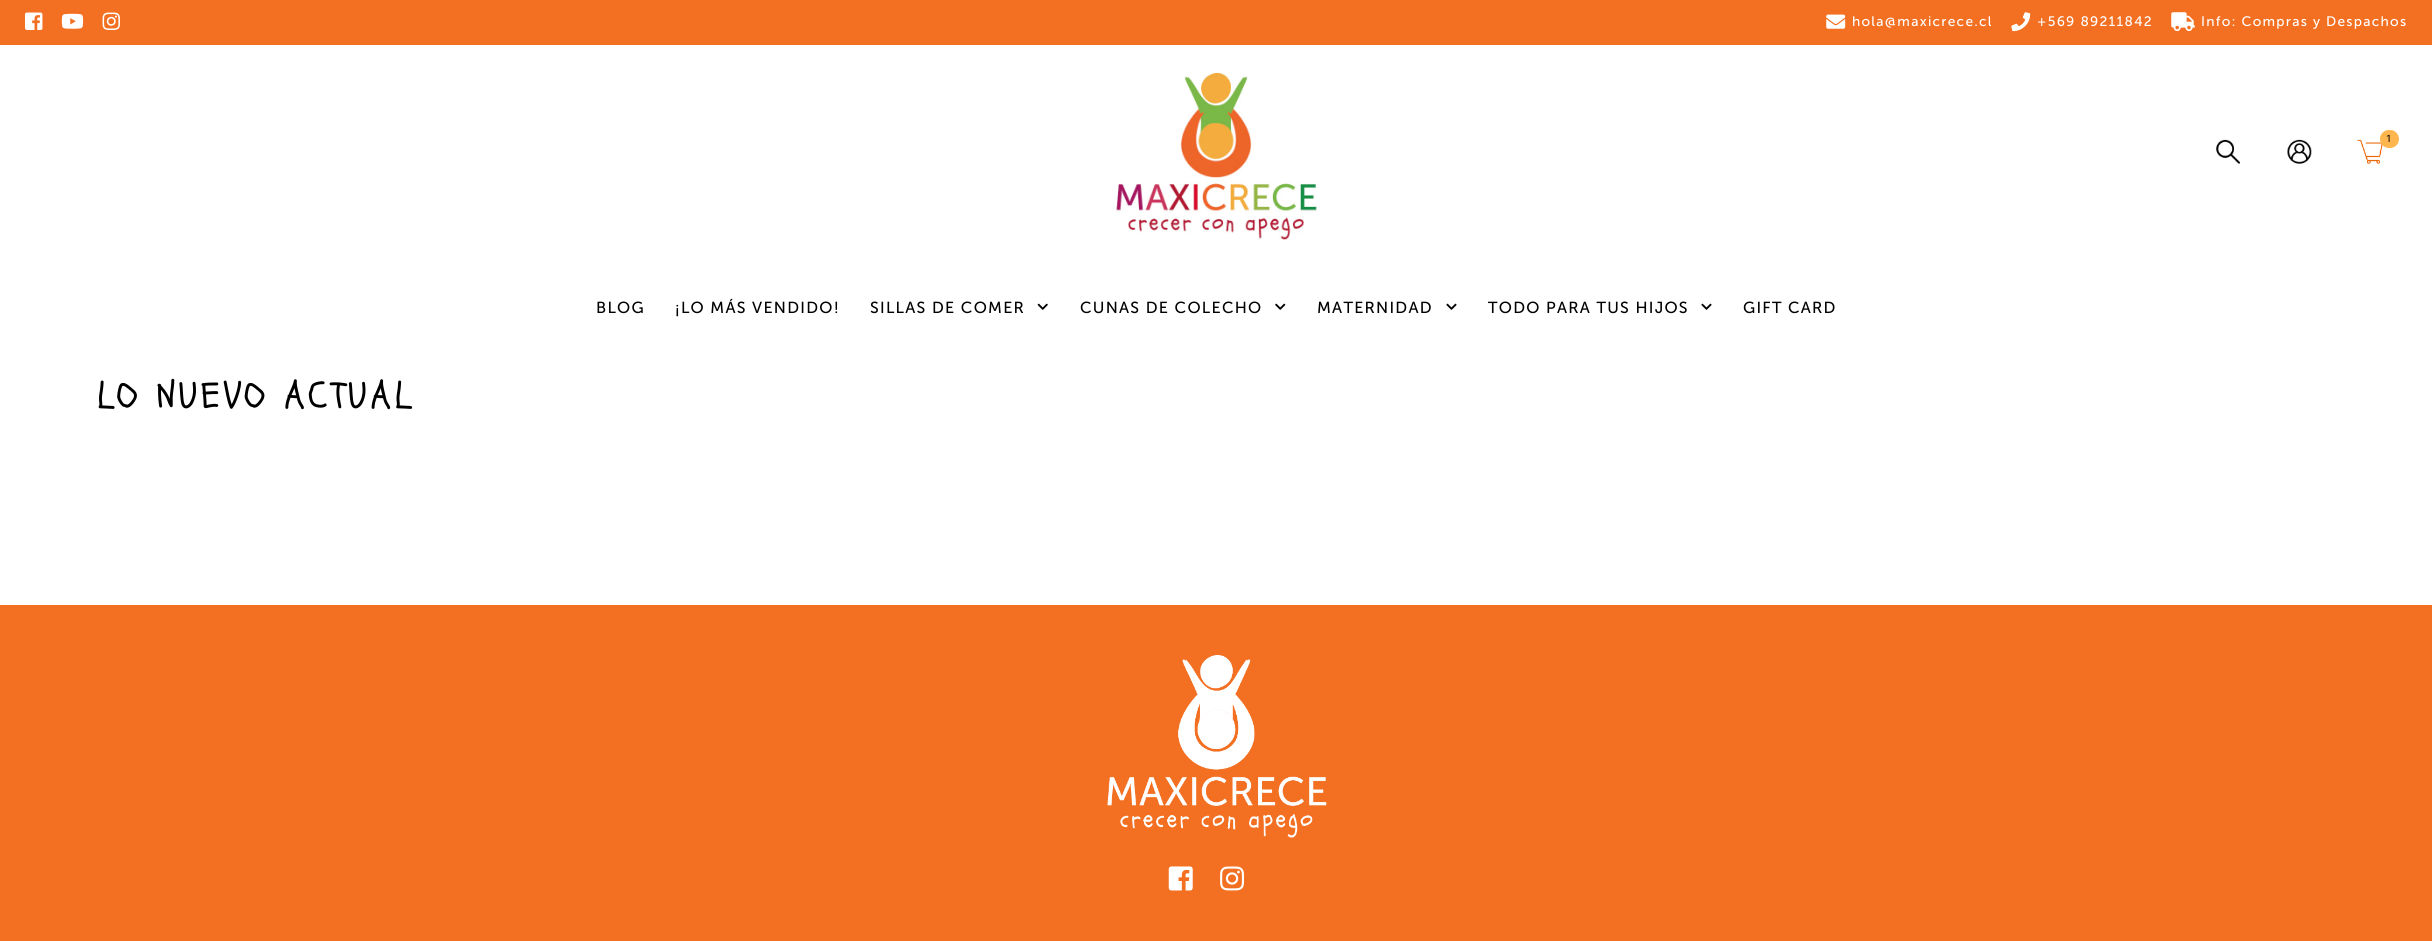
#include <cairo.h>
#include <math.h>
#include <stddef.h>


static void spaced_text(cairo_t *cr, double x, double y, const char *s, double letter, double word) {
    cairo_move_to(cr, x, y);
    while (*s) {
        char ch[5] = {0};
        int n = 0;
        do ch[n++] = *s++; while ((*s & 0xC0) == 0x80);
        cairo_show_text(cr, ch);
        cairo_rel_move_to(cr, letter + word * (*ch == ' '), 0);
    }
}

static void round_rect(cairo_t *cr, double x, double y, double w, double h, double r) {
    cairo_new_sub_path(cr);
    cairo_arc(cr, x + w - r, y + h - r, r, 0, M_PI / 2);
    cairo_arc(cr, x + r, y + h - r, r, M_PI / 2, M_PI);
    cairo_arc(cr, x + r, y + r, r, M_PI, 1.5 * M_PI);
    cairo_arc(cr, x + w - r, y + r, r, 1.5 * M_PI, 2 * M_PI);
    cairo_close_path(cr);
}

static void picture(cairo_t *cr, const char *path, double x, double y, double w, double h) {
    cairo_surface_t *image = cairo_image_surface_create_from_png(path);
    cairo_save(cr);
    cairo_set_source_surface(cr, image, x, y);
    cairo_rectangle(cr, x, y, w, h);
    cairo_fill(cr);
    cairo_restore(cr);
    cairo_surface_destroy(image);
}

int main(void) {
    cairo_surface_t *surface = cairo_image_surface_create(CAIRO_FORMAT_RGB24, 2432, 941);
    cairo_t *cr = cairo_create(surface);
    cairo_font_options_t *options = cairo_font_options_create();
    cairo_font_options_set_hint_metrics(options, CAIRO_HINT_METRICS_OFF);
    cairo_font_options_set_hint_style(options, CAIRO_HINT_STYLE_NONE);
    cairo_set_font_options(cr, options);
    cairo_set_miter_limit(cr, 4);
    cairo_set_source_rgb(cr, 1, 1, 1);
    cairo_paint(cr);
    cairo_set_source_rgb(cr, 0.953, 0.435, 0.129);
    cairo_rectangle(cr, 0, 0, 2432, 45);
    cairo_fill(cr);
    picture(cr, "img1.png", 25, 12, 18, 18);
    picture(cr, "img2.png", 61, 13, 23, 16);
    picture(cr, "img3.png", 102, 12, 18, 18);
    picture(cr, "img4.png", 1826, 14, 20, 15);
    cairo_select_font_face(cr, "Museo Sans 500", CAIRO_FONT_SLANT_NORMAL, CAIRO_FONT_WEIGHT_NORMAL);
    cairo_set_font_size(cr, 13.75);
    cairo_set_source_rgb(cr, 1, 1, 1);
    spaced_text(cr, 1852, 26, "hola@maxicrece.cl", 1.25, 0);
    picture(cr, "img5.png", 2011, 12, 20, 20);
    spaced_text(cr, 2037, 26, "+569 89211842", 1.25, 0);
    picture(cr, "img6.png", 2171, 12, 24, 20);
    spaced_text(cr, 2201, 26, "Info: Compras y Despachos", 1.25, 0);
    picture(cr, "img7.png", 1116, 72, 201, 169);
    picture(cr, "img8.png", 2357, 139, 26, 25);
    cairo_set_source_rgb(cr, 1, 0.714, 0.306);
    round_rect(cr, 2380, 130, 19, 18, 9);
    cairo_fill(cr);
    cairo_select_font_face(cr, "Roboto", CAIRO_FONT_SLANT_NORMAL, CAIRO_FONT_WEIGHT_NORMAL);
    cairo_set_font_size(cr, 10);
    cairo_set_source_rgb(cr, 0, 0, 0);
    spaced_text(cr, 2386, 142, "1", 1, 0);
    picture(cr, "img9.png", 2216, 139, 24, 25);
    picture(cr, "img10.png", 2287, 139, 25, 25);
    cairo_select_font_face(cr, "Museo Sans 500", CAIRO_FONT_SLANT_NORMAL, CAIRO_FONT_WEIGHT_NORMAL);
    cairo_set_font_size(cr, 16);
    spaced_text(cr, 596, 313, "BLOG", 1.25, 0);
    spaced_text(cr, 675, 313, "¡LO MÁS VENDIDO!", 1.25, 0);
    spaced_text(cr, 870, 313, "SILLAS DE COMER", 1.25, 0);
    picture(cr, "img11.png", 1037, 303, 11, 7);
    spaced_text(cr, 1080, 313, "CUNAS DE COLECHO", 1.25, 0);
    picture(cr, "img12.png", 1275, 303, 11, 7);
    spaced_text(cr, 1317, 313, "MATERNIDAD", 1.25, 0);
    picture(cr, "img13.png", 1446, 303, 11, 7);
    spaced_text(cr, 1488, 313, "TODO PARA TUS HIJOS", 1.25, 0);
    picture(cr, "img13.png", 1701, 303, 11, 7);
    spaced_text(cr, 1743, 313, "GIFT CARD", 1.25, 0);
    cairo_select_font_face(cr, "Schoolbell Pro", CAIRO_FONT_SLANT_NORMAL, CAIRO_FONT_WEIGHT_NORMAL);
    cairo_set_font_size(cr, 37.5);
    spaced_text(cr, 97, 408, "LO NUEVO ACTUAL", 3.75, 0);
    cairo_set_source_rgb(cr, 0.953, 0.435, 0.129);
    cairo_rectangle(cr, 0, 605, 2432, 336);
    cairo_fill(cr);
    picture(cr, "img14.png", 1107, 655, 220, 183);
    picture(cr, "img15.png", 1168, 866, 25, 25);
    picture(cr, "img16.png", 1220, 866, 24, 25);
    cairo_surface_write_to_png(surface, "page.png");
    cairo_font_options_destroy(options);
    cairo_destroy(cr);
    cairo_surface_destroy(surface);
    return 0;
}
